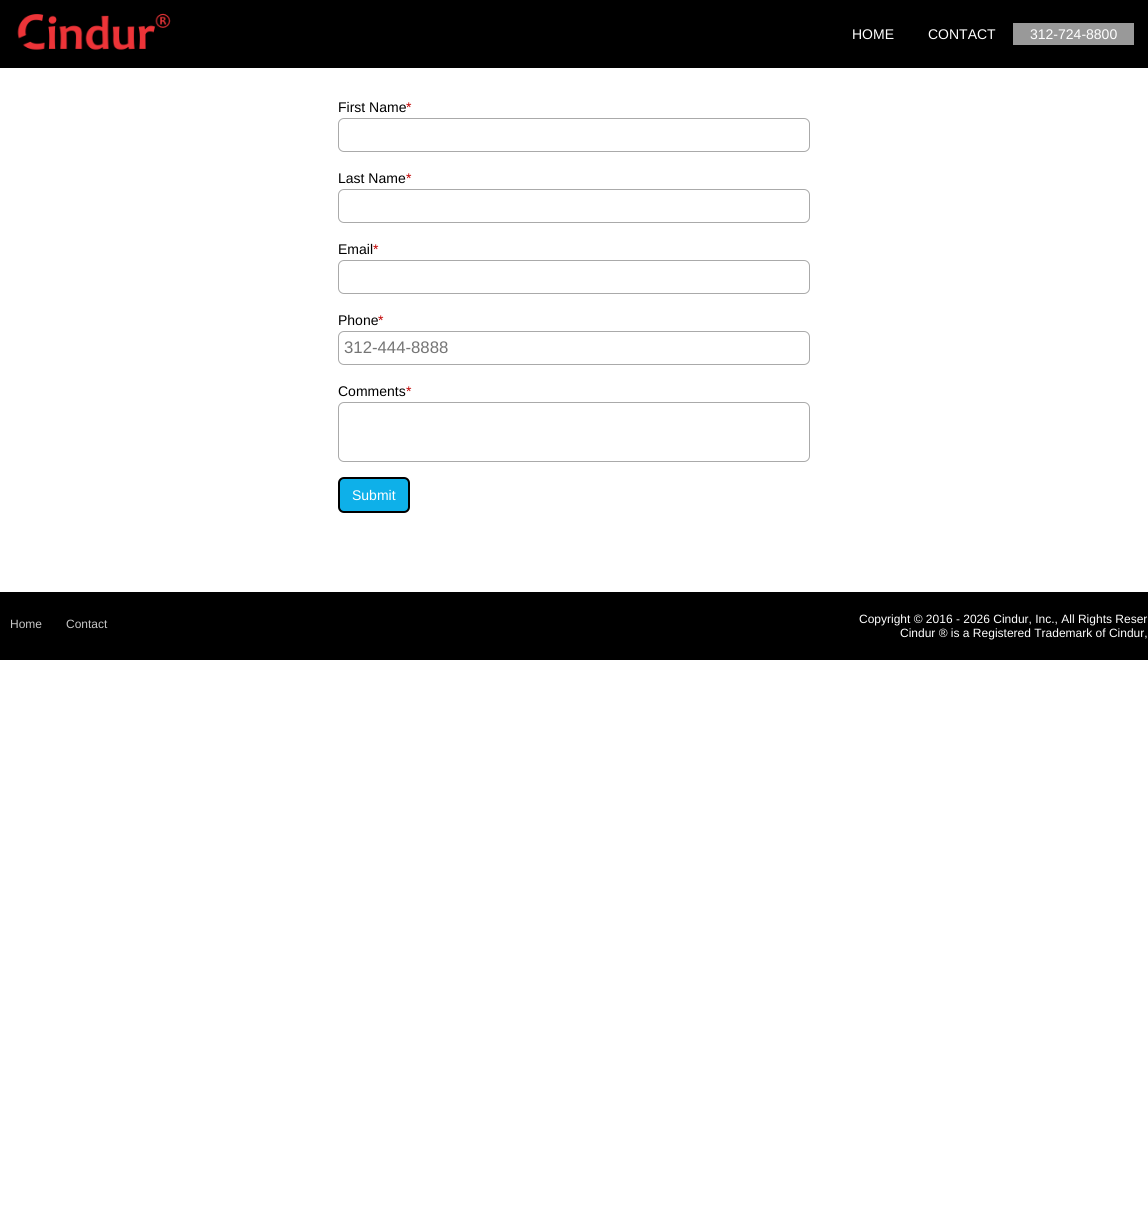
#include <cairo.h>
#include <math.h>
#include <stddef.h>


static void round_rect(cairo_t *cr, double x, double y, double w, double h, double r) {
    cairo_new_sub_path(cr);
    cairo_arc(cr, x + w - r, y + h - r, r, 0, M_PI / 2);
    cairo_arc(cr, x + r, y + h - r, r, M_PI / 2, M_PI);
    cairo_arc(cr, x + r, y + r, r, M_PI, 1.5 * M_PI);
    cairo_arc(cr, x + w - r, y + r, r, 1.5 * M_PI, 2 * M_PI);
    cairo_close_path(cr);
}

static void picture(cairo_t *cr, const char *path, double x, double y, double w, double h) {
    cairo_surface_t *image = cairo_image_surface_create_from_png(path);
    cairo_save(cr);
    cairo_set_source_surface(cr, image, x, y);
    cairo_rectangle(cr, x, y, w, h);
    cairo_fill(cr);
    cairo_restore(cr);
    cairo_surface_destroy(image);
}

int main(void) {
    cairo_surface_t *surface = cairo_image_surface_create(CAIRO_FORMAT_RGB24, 1148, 1219);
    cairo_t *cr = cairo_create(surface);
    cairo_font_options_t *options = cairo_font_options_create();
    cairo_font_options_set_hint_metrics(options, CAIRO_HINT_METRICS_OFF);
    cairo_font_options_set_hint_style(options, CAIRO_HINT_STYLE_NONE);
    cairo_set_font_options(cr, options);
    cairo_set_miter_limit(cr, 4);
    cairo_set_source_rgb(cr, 1, 1, 1);
    cairo_paint(cr);
    cairo_set_source_rgb(cr, 0, 0, 0);
    cairo_rectangle(cr, 0, 0, 1148, 68);
    cairo_fill(cr);
    picture(cr, "img1.png", 17, 13, 154, 37);
    cairo_select_font_face(cr, "Liberation Sans", CAIRO_FONT_SLANT_NORMAL, CAIRO_FONT_WEIGHT_NORMAL);
    cairo_set_font_size(cr, 14);
    cairo_set_source_rgb(cr, 1, 1, 1);
    cairo_move_to(cr, 852, 39);
    cairo_show_text(cr, "HOME");
    cairo_move_to(cr, 928, 39);
    cairo_show_text(cr, "CONTACT");
    cairo_set_source_rgb(cr, 0.6, 0.6, 0.6);
    cairo_rectangle(cr, 1013, 23, 121, 22);
    cairo_fill(cr);
    cairo_set_source_rgb(cr, 1, 1, 1);
    cairo_move_to(cr, 1030, 39);
    cairo_show_text(cr, "312-724-8800");
    cairo_set_source_rgb(cr, 0, 0, 0);
    cairo_move_to(cr, 338, 112);
    cairo_show_text(cr, "First Name");
    cairo_set_source_rgb(cr, 0.757, 0, 0);
    cairo_move_to(cr, 406, 112);
    cairo_show_text(cr, "*");
    round_rect(cr, 338.5, 118.5, 471, 33, 5.5);
    cairo_set_source_rgb(cr, 0.667, 0.667, 0.667);
    cairo_set_line_width(cr, 1);
    cairo_stroke(cr);
    cairo_set_source_rgb(cr, 0, 0, 0);
    cairo_move_to(cr, 338, 183);
    cairo_show_text(cr, "Last Name");
    cairo_set_source_rgb(cr, 0.757, 0, 0);
    cairo_move_to(cr, 406, 183);
    cairo_show_text(cr, "*");
    round_rect(cr, 338.5, 189.5, 471, 33, 5.5);
    cairo_set_source_rgb(cr, 0.667, 0.667, 0.667);
    cairo_stroke(cr);
    cairo_set_source_rgb(cr, 0, 0, 0);
    cairo_move_to(cr, 338, 254);
    cairo_show_text(cr, "Email");
    cairo_set_source_rgb(cr, 0.757, 0, 0);
    cairo_move_to(cr, 373, 254);
    cairo_show_text(cr, "*");
    round_rect(cr, 338.5, 260.5, 471, 33, 5.5);
    cairo_set_source_rgb(cr, 0.667, 0.667, 0.667);
    cairo_stroke(cr);
    cairo_set_source_rgb(cr, 0, 0, 0);
    cairo_move_to(cr, 338, 325);
    cairo_show_text(cr, "Phone");
    cairo_set_source_rgb(cr, 0.757, 0, 0);
    cairo_move_to(cr, 378, 325);
    cairo_show_text(cr, "*");
    round_rect(cr, 338.5, 331.5, 471, 33, 5.5);
    cairo_set_source_rgb(cr, 0.667, 0.667, 0.667);
    cairo_stroke(cr);
    cairo_set_font_size(cr, 16.75);
    cairo_set_source_rgb(cr, 0.459, 0.459, 0.459);
    cairo_move_to(cr, 344, 353);
    cairo_show_text(cr, "312-444-8888");
    cairo_set_font_size(cr, 14);
    cairo_set_source_rgb(cr, 0, 0, 0);
    cairo_move_to(cr, 338, 396);
    cairo_show_text(cr, "Comments");
    cairo_set_source_rgb(cr, 0.757, 0, 0);
    cairo_move_to(cr, 406, 396);
    cairo_show_text(cr, "*");
    round_rect(cr, 338.5, 402.5, 471, 59, 5.5);
    cairo_set_source_rgb(cr, 0.667, 0.667, 0.667);
    cairo_stroke(cr);
    cairo_set_source_rgb(cr, 0.055, 0.69, 0.914);
    round_rect(cr, 339, 478, 70, 34, 5);
    cairo_fill_preserve(cr);
    cairo_set_source_rgb(cr, 0, 0, 0);
    cairo_set_line_width(cr, 2);
    cairo_stroke(cr);
    cairo_set_source_rgb(cr, 1, 1, 1);
    cairo_move_to(cr, 352, 500);
    cairo_show_text(cr, "Submit");
    cairo_set_source_rgb(cr, 0, 0, 0);
    cairo_rectangle(cr, 0, 592, 1148, 68);
    cairo_fill(cr);
    cairo_set_font_size(cr, 12);
    cairo_set_source_rgb(cr, 0.776, 0.776, 0.776);
    cairo_move_to(cr, 10, 628);
    cairo_show_text(cr, "Home");
    cairo_move_to(cr, 66, 628);
    cairo_show_text(cr, "Contact");
    cairo_set_source_rgb(cr, 1, 1, 1);
    cairo_move_to(cr, 859, 623);
    cairo_show_text(cr, "Copyright © 2016 - 2026 Cindur, Inc., All Rights Reser");
    cairo_move_to(cr, 900, 637);
    cairo_show_text(cr, "Cindur ® is a Registered Trademark of Cindur,");
    cairo_surface_write_to_png(surface, "page.png");
    cairo_font_options_destroy(options);
    cairo_destroy(cr);
    cairo_surface_destroy(surface);
    return 0;
}
